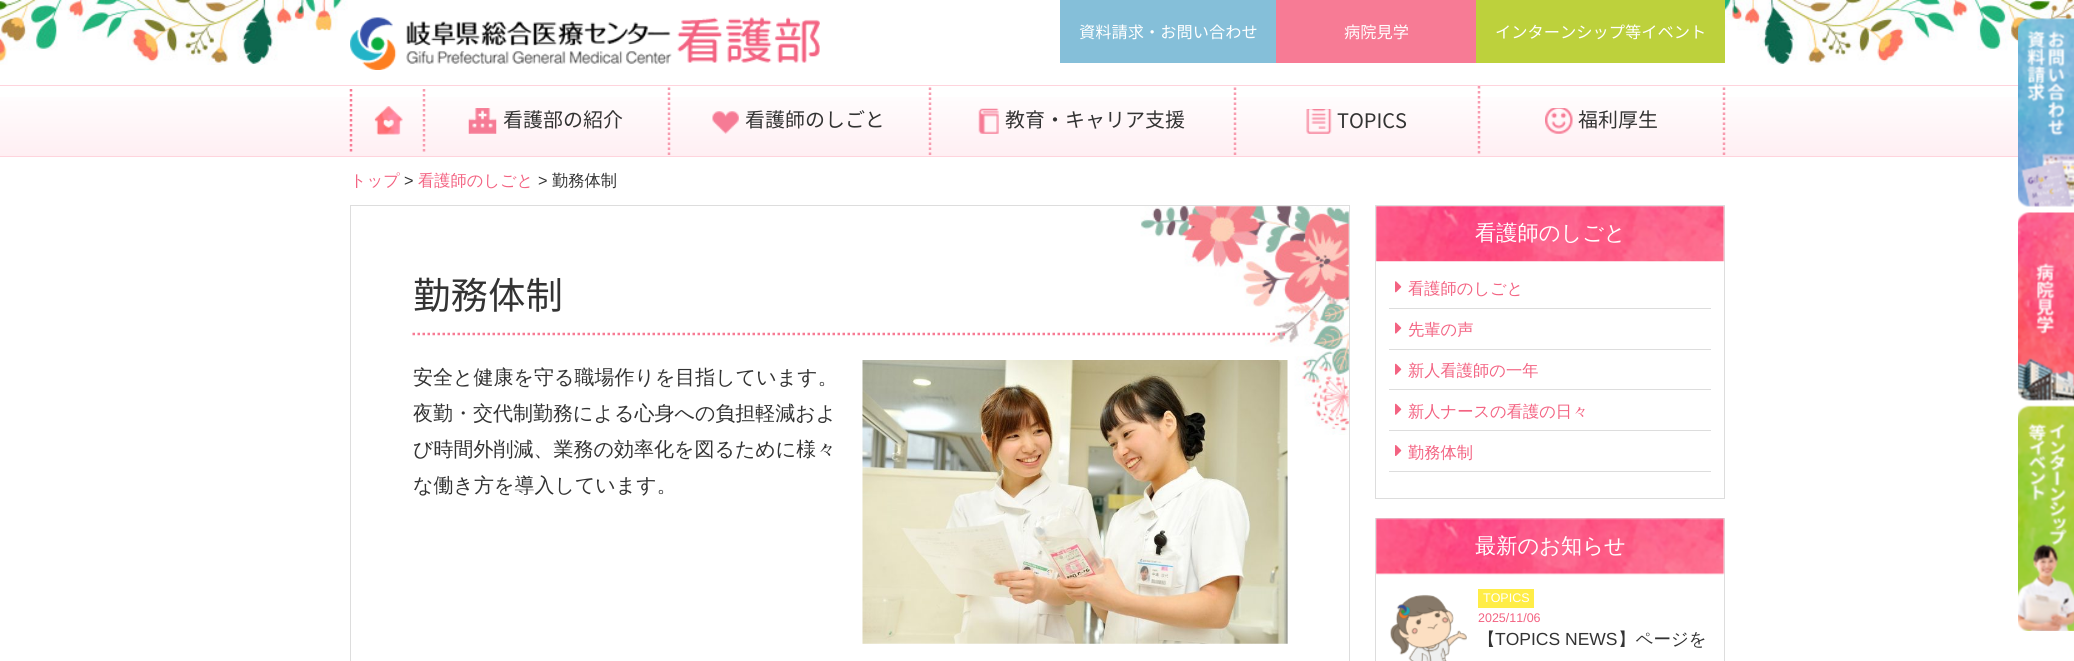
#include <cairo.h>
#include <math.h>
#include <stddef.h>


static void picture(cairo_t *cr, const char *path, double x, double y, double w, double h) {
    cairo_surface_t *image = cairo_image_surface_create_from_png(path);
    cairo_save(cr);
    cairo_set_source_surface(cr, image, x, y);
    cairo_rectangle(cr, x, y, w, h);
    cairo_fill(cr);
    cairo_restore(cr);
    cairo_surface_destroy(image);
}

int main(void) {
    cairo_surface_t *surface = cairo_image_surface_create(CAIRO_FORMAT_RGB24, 2074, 661);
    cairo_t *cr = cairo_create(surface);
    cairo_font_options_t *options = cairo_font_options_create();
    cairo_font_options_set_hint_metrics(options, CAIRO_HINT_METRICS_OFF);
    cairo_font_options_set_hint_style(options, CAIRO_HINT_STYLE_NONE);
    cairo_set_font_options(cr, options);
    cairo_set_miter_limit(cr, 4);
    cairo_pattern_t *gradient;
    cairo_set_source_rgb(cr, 1, 1, 1);
    cairo_paint(cr);
    picture(cr, "img1.png", 0, 0, 2074, 65);
    picture(cr, "img2.png", 350, 17, 470, 53);
    cairo_set_source_rgb(cr, 0.522, 0.749, 0.851);
    cairo_rectangle(cr, 1060, 0, 216, 63);
    cairo_fill(cr);
    cairo_select_font_face(cr, "Noto Sans JP", CAIRO_FONT_SLANT_NORMAL, CAIRO_FONT_WEIGHT_NORMAL);
    cairo_set_font_size(cr, 16.25);
    cairo_set_source_rgb(cr, 1, 1, 1);
    cairo_move_to(cr, 1079, 38);
    cairo_show_text(cr, "資料請求・お問い合わせ");
    cairo_set_source_rgb(cr, 0.965, 0.482, 0.584);
    cairo_rectangle(cr, 1276, 0, 200, 63);
    cairo_fill(cr);
    cairo_set_source_rgb(cr, 1, 1, 1);
    cairo_move_to(cr, 1344, 38);
    cairo_show_text(cr, "病院見学");
    cairo_set_source_rgb(cr, 0.741, 0.82, 0.235);
    cairo_rectangle(cr, 1476, 0, 249, 63);
    cairo_fill(cr);
    cairo_set_source_rgb(cr, 1, 1, 1);
    cairo_move_to(cr, 1495, 38);
    cairo_show_text(cr, "インターンシップ等イベント");
    picture(cr, "img3.png", 2018, 18, 56, 189);
    picture(cr, "img4.png", 2018, 212, 56, 189);
    picture(cr, "img5.png", 2018, 405, 56, 226);
    gradient = cairo_pattern_create_linear(1038, 86, 1038, 156);
    cairo_pattern_add_color_stop_rgba(gradient, 0, 1, 1, 1, 1);
    cairo_pattern_add_color_stop_rgba(gradient, 1, 1, 0.937, 0.953, 1);
    cairo_set_source(cr, gradient);
    cairo_pattern_destroy(gradient);
    cairo_rectangle(cr, 0, 97, 2018, 59);
    cairo_fill(cr);
    cairo_set_source_rgb(cr, 1, 0.831, 0.867);
    cairo_rectangle(cr, 0, 85, 2018, 1);
    cairo_fill(cr);
    cairo_rectangle(cr, 0, 156, 2018, 1);
    cairo_fill(cr);
    cairo_new_path(cr);
    cairo_move_to(cr, 424, 89);
    cairo_line_to(cr, 424, 154);
    cairo_set_source_rgb(cr, 0.969, 0.608, 0.686);
    cairo_set_line_width(cr, 2.5);
    cairo_set_dash(cr, (double[]){2.5, 2.5}, 2, 0);
    cairo_stroke(cr);
    cairo_new_path(cr);
    cairo_move_to(cr, 351, 89);
    cairo_line_to(cr, 351, 154);
    cairo_set_source_rgb(cr, 0.965, 0.482, 0.584);
    cairo_stroke(cr);
    picture(cr, "img6.png", 374, 106, 29, 29);
    cairo_new_path(cr);
    cairo_move_to(cr, 669, 87.5);
    cairo_line_to(cr, 669, 156);
    cairo_set_source_rgb(cr, 0.969, 0.608, 0.686);
    cairo_stroke(cr);
    picture(cr, "img7.png", 468, 108, 29, 26);
    cairo_set_font_size(cr, 20);
    cairo_set_source_rgb(cr, 0.2, 0.2, 0.2);
    cairo_move_to(cr, 503, 127);
    cairo_show_text(cr, "看護部の紹介");
    cairo_new_path(cr);
    cairo_move_to(cr, 930, 87.5);
    cairo_line_to(cr, 930, 156);
    cairo_set_source_rgb(cr, 0.969, 0.608, 0.686);
    cairo_stroke(cr);
    picture(cr, "img8.png", 712, 111, 27, 23);
    cairo_set_source_rgb(cr, 0.2, 0.2, 0.2);
    cairo_move_to(cr, 745, 127);
    cairo_show_text(cr, "看護師のしごと");
    cairo_new_path(cr);
    cairo_move_to(cr, 1235, 87.5);
    cairo_line_to(cr, 1235, 156);
    cairo_set_source_rgb(cr, 0.969, 0.608, 0.686);
    cairo_stroke(cr);
    picture(cr, "img9.png", 978, 108, 21, 26);
    cairo_set_source_rgb(cr, 0.2, 0.2, 0.2);
    cairo_move_to(cr, 1005, 127);
    cairo_show_text(cr, "教育・キャリア支援");
    cairo_new_path(cr);
    cairo_move_to(cr, 1479, 86);
    cairo_line_to(cr, 1479, 156);
    cairo_set_source_rgb(cr, 0.969, 0.608, 0.686);
    cairo_stroke(cr);
    picture(cr, "img10.png", 1306, 109, 26, 25);
    cairo_set_source_rgb(cr, 0.2, 0.2, 0.2);
    cairo_move_to(cr, 1337, 128);
    cairo_show_text(cr, "TOPICS");
    cairo_new_path(cr);
    cairo_move_to(cr, 1724, 87.5);
    cairo_line_to(cr, 1724, 156);
    cairo_set_source_rgb(cr, 0.969, 0.608, 0.686);
    cairo_stroke(cr);
    picture(cr, "img11.png", 1545, 108, 28, 26);
    cairo_set_source_rgb(cr, 0.2, 0.2, 0.2);
    cairo_move_to(cr, 1578, 127);
    cairo_show_text(cr, "福利厚生");
    cairo_select_font_face(cr, "WenQuanYi Zen Hei Medium", CAIRO_FONT_SLANT_NORMAL, CAIRO_FONT_WEIGHT_NORMAL);
    cairo_set_font_size(cr, 16.25);
    cairo_set_source_rgb(cr, 0.953, 0.388, 0.51);
    cairo_move_to(cr, 350, 186);
    cairo_show_text(cr, "トップ");
    cairo_select_font_face(cr, "Liberation Sans", CAIRO_FONT_SLANT_NORMAL, CAIRO_FONT_WEIGHT_NORMAL);
    cairo_set_source_rgb(cr, 0.2, 0.2, 0.2);
    cairo_move_to(cr, 404, 186);
    cairo_show_text(cr, ">");
    cairo_select_font_face(cr, "WenQuanYi Zen Hei Medium", CAIRO_FONT_SLANT_NORMAL, CAIRO_FONT_WEIGHT_NORMAL);
    cairo_set_source_rgb(cr, 0.953, 0.388, 0.51);
    cairo_move_to(cr, 418, 186);
    cairo_show_text(cr, "看護師のしごと");
    cairo_select_font_face(cr, "Liberation Sans", CAIRO_FONT_SLANT_NORMAL, CAIRO_FONT_WEIGHT_NORMAL);
    cairo_set_source_rgb(cr, 0.2, 0.2, 0.2);
    cairo_move_to(cr, 538, 186);
    cairo_show_text(cr, ">");
    cairo_select_font_face(cr, "WenQuanYi Zen Hei Medium", CAIRO_FONT_SLANT_NORMAL, CAIRO_FONT_WEIGHT_NORMAL);
    cairo_move_to(cr, 552, 186);
    cairo_show_text(cr, "勤務体制");
    picture(cr, "img12.png", 1140, 206, 209, 229);
    cairo_rectangle(cr, 350.5, 205.5, 999, 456);
    cairo_set_source_rgb(cr, 0.867, 0.867, 0.867);
    cairo_set_line_width(cr, 1);
    cairo_set_dash(cr, NULL, 0, 0);
    cairo_stroke(cr);
    cairo_new_path(cr);
    cairo_move_to(cr, 412.5, 334);
    cairo_line_to(cr, 1287.5, 334);
    cairo_set_source_rgb(cr, 0.965, 0.482, 0.584);
    cairo_set_line_width(cr, 2.5);
    cairo_set_dash(cr, (double[]){2.5, 2.5}, 2, 0);
    cairo_stroke(cr);
    cairo_select_font_face(cr, "Noto Sans JP", CAIRO_FONT_SLANT_NORMAL, CAIRO_FONT_WEIGHT_NORMAL);
    cairo_set_font_size(cr, 37.5);
    cairo_set_source_rgb(cr, 0.2, 0.2, 0.2);
    cairo_move_to(cr, 413, 309);
    cairo_show_text(cr, "勤務体制");
    cairo_select_font_face(cr, "WenQuanYi Zen Hei Medium", CAIRO_FONT_SLANT_NORMAL, CAIRO_FONT_WEIGHT_NORMAL);
    cairo_set_font_size(cr, 20);
    cairo_move_to(cr, 413, 384);
    cairo_show_text(cr, "安全と健康を守る職場作りを目指しています。");
    cairo_move_to(cr, 413, 420);
    cairo_show_text(cr, "夜勤・交代制勤務による心身への負担軽減およ");
    cairo_move_to(cr, 413, 456);
    cairo_show_text(cr, "び時間外削減、業務の効率化を図るために様々");
    cairo_move_to(cr, 413, 492);
    cairo_show_text(cr, "な働き方を導入しています。");
    picture(cr, "img13.png", 862, 360, 426, 284);
    cairo_rectangle(cr, 1375.5, 205.5, 349, 293);
    cairo_set_source_rgb(cr, 0.867, 0.867, 0.867);
    cairo_set_line_width(cr, 1);
    cairo_set_dash(cr, NULL, 0, 0);
    cairo_stroke(cr);
    picture(cr, "img14.png", 1376, 206, 349, 56);
    cairo_set_font_size(cr, 21.25);
    cairo_set_source_rgb(cr, 1, 1, 1);
    cairo_move_to(cr, 1475, 240);
    cairo_show_text(cr, "看護師のしごと");
    cairo_set_source_rgb(cr, 0.867, 0.867, 0.867);
    cairo_rectangle(cr, 1389, 308, 322, 1);
    cairo_fill(cr);
    picture(cr, "img15.png", 1395, 281, 7, 12);
    cairo_set_font_size(cr, 16.25);
    cairo_set_source_rgb(cr, 0.953, 0.388, 0.51);
    cairo_move_to(cr, 1408, 294);
    cairo_show_text(cr, "看護師のしごと");
    cairo_set_source_rgb(cr, 0.867, 0.867, 0.867);
    cairo_rectangle(cr, 1389, 349, 322, 1);
    cairo_fill(cr);
    picture(cr, "img16.png", 1395, 322, 7, 12);
    cairo_set_source_rgb(cr, 0.953, 0.388, 0.51);
    cairo_move_to(cr, 1408, 335);
    cairo_show_text(cr, "先輩の声");
    cairo_set_source_rgb(cr, 0.867, 0.867, 0.867);
    cairo_rectangle(cr, 1389, 389, 322, 1);
    cairo_fill(cr);
    picture(cr, "img17.png", 1395, 363, 7, 12);
    cairo_set_source_rgb(cr, 0.953, 0.388, 0.51);
    cairo_move_to(cr, 1408, 376);
    cairo_show_text(cr, "新人看護師の一年");
    cairo_set_source_rgb(cr, 0.867, 0.867, 0.867);
    cairo_rectangle(cr, 1389, 430, 322, 1);
    cairo_fill(cr);
    picture(cr, "img17.png", 1395, 403, 7, 12);
    cairo_set_source_rgb(cr, 0.953, 0.388, 0.51);
    cairo_move_to(cr, 1408, 417);
    cairo_show_text(cr, "新人ナースの看護の日々");
    cairo_set_source_rgb(cr, 0.867, 0.867, 0.867);
    cairo_rectangle(cr, 1389, 471, 322, 1);
    cairo_fill(cr);
    picture(cr, "img18.png", 1395, 445, 7, 11);
    cairo_set_source_rgb(cr, 0.953, 0.388, 0.51);
    cairo_move_to(cr, 1408, 458);
    cairo_show_text(cr, "勤務体制");
    cairo_rectangle(cr, 1375.5, 518.5, 349, 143);
    cairo_set_source_rgb(cr, 0.867, 0.867, 0.867);
    cairo_stroke(cr);
    picture(cr, "img19.png", 1376, 518, 349, 57);
    cairo_set_font_size(cr, 21.25);
    cairo_set_source_rgb(cr, 1, 1, 1);
    cairo_move_to(cr, 1475, 553);
    cairo_show_text(cr, "最新のお知らせ");
    picture(cr, "img20.png", 1390, 594, 77, 67);
    cairo_set_source_rgb(cr, 1, 0.929, 0.278);
    cairo_rectangle(cr, 1478, 589, 56, 19);
    cairo_fill(cr);
    cairo_select_font_face(cr, "Liberation Sans", CAIRO_FONT_SLANT_NORMAL, CAIRO_FONT_WEIGHT_NORMAL);
    cairo_set_font_size(cr, 12.5);
    cairo_set_source_rgb(cr, 1, 1, 1);
    cairo_move_to(cr, 1483, 602);
    cairo_show_text(cr, "TOPICS");
    cairo_set_source_rgb(cr, 0.953, 0.388, 0.51);
    cairo_move_to(cr, 1478, 622);
    cairo_show_text(cr, "2025/11/06");
    cairo_select_font_face(cr, "WenQuanYi Zen Hei Medium", CAIRO_FONT_SLANT_NORMAL, CAIRO_FONT_WEIGHT_NORMAL);
    cairo_set_font_size(cr, 17.5);
    cairo_set_source_rgb(cr, 0.2, 0.2, 0.2);
    cairo_move_to(cr, 1478, 645);
    cairo_show_text(cr, "【");
    cairo_select_font_face(cr, "Liberation Sans", CAIRO_FONT_SLANT_NORMAL, CAIRO_FONT_WEIGHT_NORMAL);
    cairo_move_to(cr, 1495, 645);
    cairo_show_text(cr, "TOPICS NEWS");
    cairo_select_font_face(cr, "WenQuanYi Zen Hei Medium", CAIRO_FONT_SLANT_NORMAL, CAIRO_FONT_WEIGHT_NORMAL);
    cairo_move_to(cr, 1618, 645);
    cairo_show_text(cr, "】ページを");
    cairo_surface_write_to_png(surface, "page.png");
    cairo_font_options_destroy(options);
    cairo_destroy(cr);
    cairo_surface_destroy(surface);
    return 0;
}
